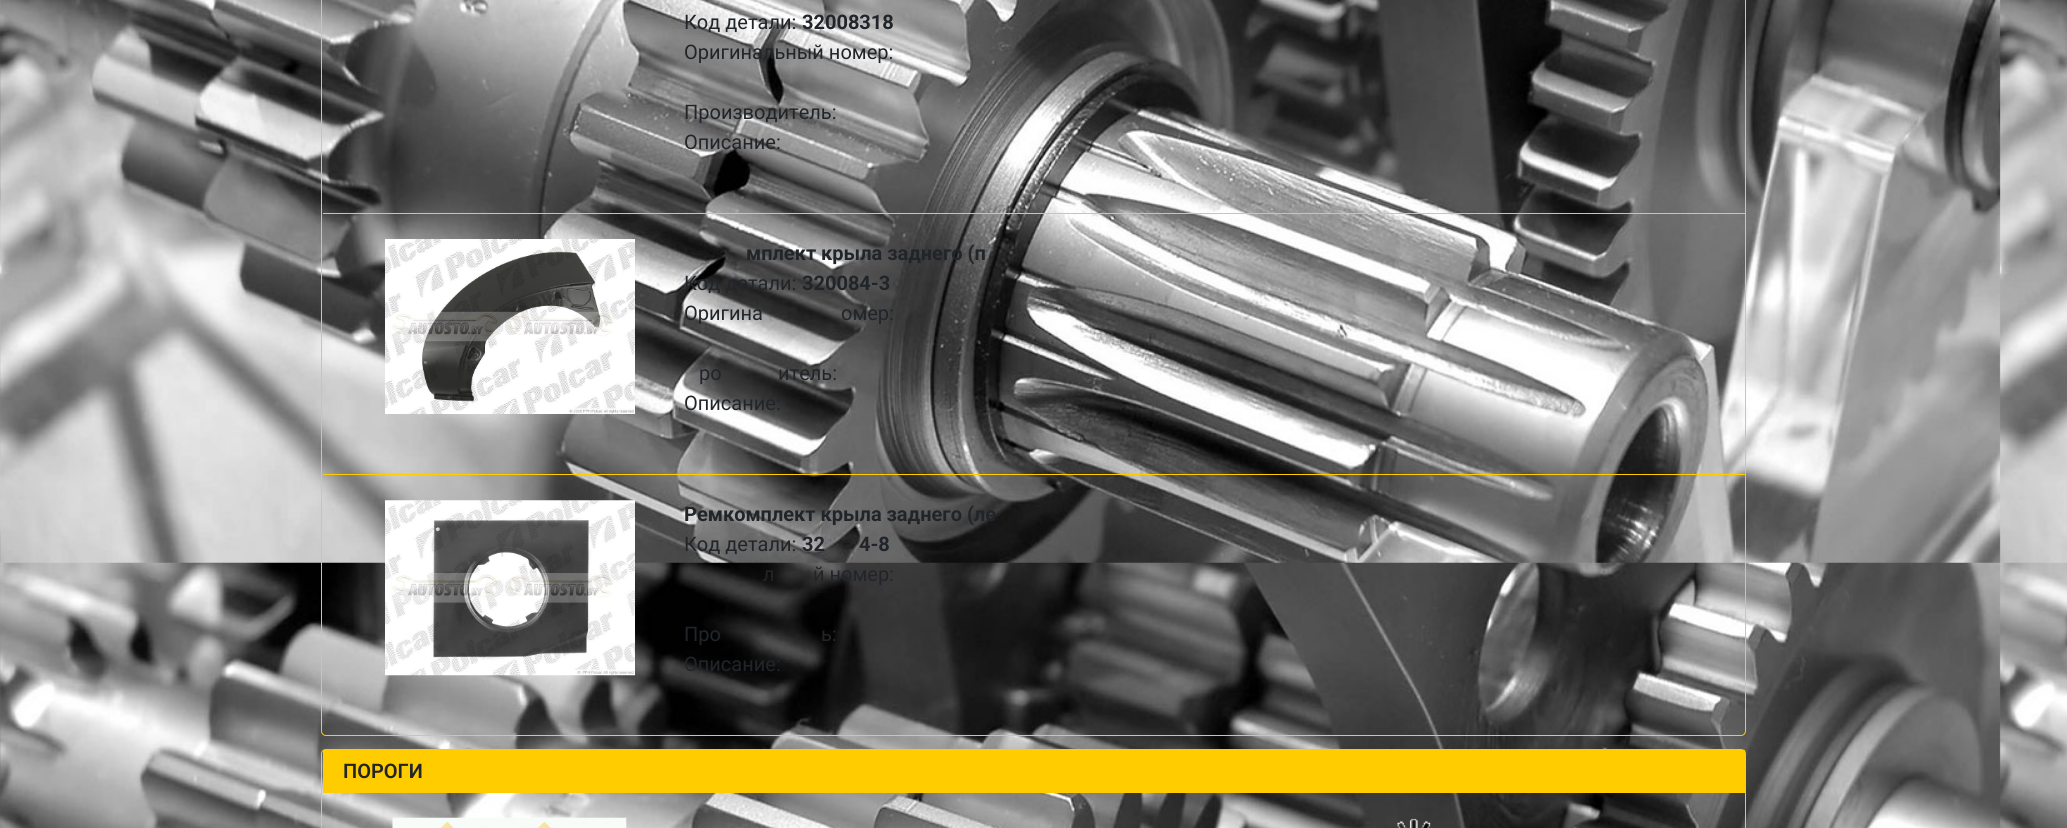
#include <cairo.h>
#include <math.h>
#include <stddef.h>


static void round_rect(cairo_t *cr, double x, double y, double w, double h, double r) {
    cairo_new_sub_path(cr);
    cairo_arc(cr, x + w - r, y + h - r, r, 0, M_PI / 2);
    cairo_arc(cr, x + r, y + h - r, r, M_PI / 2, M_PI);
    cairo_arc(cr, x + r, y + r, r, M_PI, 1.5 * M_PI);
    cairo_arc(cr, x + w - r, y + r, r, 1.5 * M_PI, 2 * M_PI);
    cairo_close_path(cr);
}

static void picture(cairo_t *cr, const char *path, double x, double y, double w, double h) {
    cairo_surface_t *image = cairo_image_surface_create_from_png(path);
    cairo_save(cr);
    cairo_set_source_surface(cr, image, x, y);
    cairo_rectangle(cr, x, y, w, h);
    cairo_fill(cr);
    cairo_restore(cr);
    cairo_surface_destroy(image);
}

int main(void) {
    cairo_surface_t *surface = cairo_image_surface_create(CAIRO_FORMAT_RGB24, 2067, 828);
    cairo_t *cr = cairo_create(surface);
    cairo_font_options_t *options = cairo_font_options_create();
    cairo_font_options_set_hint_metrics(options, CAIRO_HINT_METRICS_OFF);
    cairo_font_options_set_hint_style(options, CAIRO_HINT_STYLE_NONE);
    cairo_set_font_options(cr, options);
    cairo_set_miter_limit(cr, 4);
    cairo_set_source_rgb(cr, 1, 1, 1);
    cairo_paint(cr);
    picture(cr, "img1.png", 0, 0, 2067, 828);
    round_rect(cr, 321.5, -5.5, 1424, 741, 4.5);
    cairo_set_source_rgb(cr, 1, 0.8, 0);
    cairo_set_line_width(cr, 1);
    cairo_stroke(cr);
    cairo_rectangle(cr, 323, 213, 1422, 1);
    cairo_fill(cr);
    cairo_select_font_face(cr, "Roboto", CAIRO_FONT_SLANT_NORMAL, CAIRO_FONT_WEIGHT_NORMAL);
    cairo_set_font_size(cr, 20);
    cairo_set_source_rgb(cr, 0.129, 0.145, 0.161);
    cairo_move_to(cr, 684, 29);
    cairo_show_text(cr, "Код детали:");
    cairo_select_font_face(cr, "Roboto", CAIRO_FONT_SLANT_NORMAL, CAIRO_FONT_WEIGHT_BOLD);
    cairo_move_to(cr, 802, 29);
    cairo_show_text(cr, "32008318");
    cairo_select_font_face(cr, "Roboto", CAIRO_FONT_SLANT_NORMAL, CAIRO_FONT_WEIGHT_NORMAL);
    cairo_move_to(cr, 684, 59);
    cairo_show_text(cr, "Оригинальный номер:");
    cairo_move_to(cr, 684, 119);
    cairo_show_text(cr, "Производитель:");
    cairo_move_to(cr, 684, 149);
    cairo_show_text(cr, "Описание:");
    cairo_set_source_rgb(cr, 1, 0.8, 0);
    cairo_rectangle(cr, 323, 474, 1422, 1);
    cairo_fill(cr);
    picture(cr, "img2.png", 385, 239, 250, 175);
    cairo_select_font_face(cr, "Roboto", CAIRO_FONT_SLANT_NORMAL, CAIRO_FONT_WEIGHT_BOLD);
    cairo_set_source_rgb(cr, 0.129, 0.145, 0.161);
    cairo_move_to(cr, 746, 260);
    cairo_show_text(cr, "мплект крыла заднего (п");
    cairo_select_font_face(cr, "Roboto", CAIRO_FONT_SLANT_NORMAL, CAIRO_FONT_WEIGHT_NORMAL);
    cairo_move_to(cr, 684, 290);
    cairo_show_text(cr, "Код детали:");
    cairo_select_font_face(cr, "Roboto", CAIRO_FONT_SLANT_NORMAL, CAIRO_FONT_WEIGHT_BOLD);
    cairo_move_to(cr, 802, 290);
    cairo_show_text(cr, "320084-3");
    cairo_select_font_face(cr, "Roboto", CAIRO_FONT_SLANT_NORMAL, CAIRO_FONT_WEIGHT_NORMAL);
    cairo_move_to(cr, 684, 320);
    cairo_show_text(cr, "Оригина");
    cairo_move_to(cr, 841, 320);
    cairo_show_text(cr, "омер:");
    cairo_move_to(cr, 699, 380);
    cairo_show_text(cr, "ро");
    cairo_move_to(cr, 778, 380);
    cairo_show_text(cr, "итель:");
    cairo_move_to(cr, 684, 410);
    cairo_show_text(cr, "Описание:");
    picture(cr, "img3.png", 385, 500, 250, 176);
    cairo_select_font_face(cr, "Roboto", CAIRO_FONT_SLANT_NORMAL, CAIRO_FONT_WEIGHT_BOLD);
    cairo_move_to(cr, 684, 521);
    cairo_show_text(cr, "Ремкомплект крыла заднего (ле");
    cairo_select_font_face(cr, "Roboto", CAIRO_FONT_SLANT_NORMAL, CAIRO_FONT_WEIGHT_NORMAL);
    cairo_move_to(cr, 684, 551);
    cairo_show_text(cr, "Код детали:");
    cairo_select_font_face(cr, "Roboto", CAIRO_FONT_SLANT_NORMAL, CAIRO_FONT_WEIGHT_BOLD);
    cairo_move_to(cr, 802, 551);
    cairo_show_text(cr, "32");
    cairo_move_to(cr, 859, 551);
    cairo_show_text(cr, "4-8");
    cairo_select_font_face(cr, "Roboto", CAIRO_FONT_SLANT_NORMAL, CAIRO_FONT_WEIGHT_NORMAL);
    cairo_move_to(cr, 763, 581);
    cairo_show_text(cr, "л");
    cairo_move_to(cr, 813, 581);
    cairo_show_text(cr, "й номер:");
    cairo_move_to(cr, 684, 641);
    cairo_show_text(cr, "Про");
    cairo_move_to(cr, 821, 641);
    cairo_show_text(cr, "ь:");
    cairo_move_to(cr, 684, 671);
    cairo_show_text(cr, "Описание:");
    round_rect(cr, 321.5, 749.5, 1424, 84, 4.5);
    cairo_set_source_rgb(cr, 1, 0.8, 0);
    cairo_stroke(cr);
    cairo_rectangle(cr, 323, 750, 1422, 43);
    cairo_fill(cr);
    cairo_select_font_face(cr, "Roboto SemiBold", CAIRO_FONT_SLANT_NORMAL, CAIRO_FONT_WEIGHT_NORMAL);
    cairo_set_source_rgb(cr, 0.129, 0.145, 0.161);
    cairo_move_to(cr, 343, 778);
    cairo_show_text(cr, "ПОРОГИ");
    picture(cr, "img4.png", 392, 817, 235, 11);
    picture(cr, "img5.png", 1397, 818, 34, 10);
    cairo_surface_write_to_png(surface, "page.png");
    cairo_font_options_destroy(options);
    cairo_destroy(cr);
    cairo_surface_destroy(surface);
    return 0;
}
